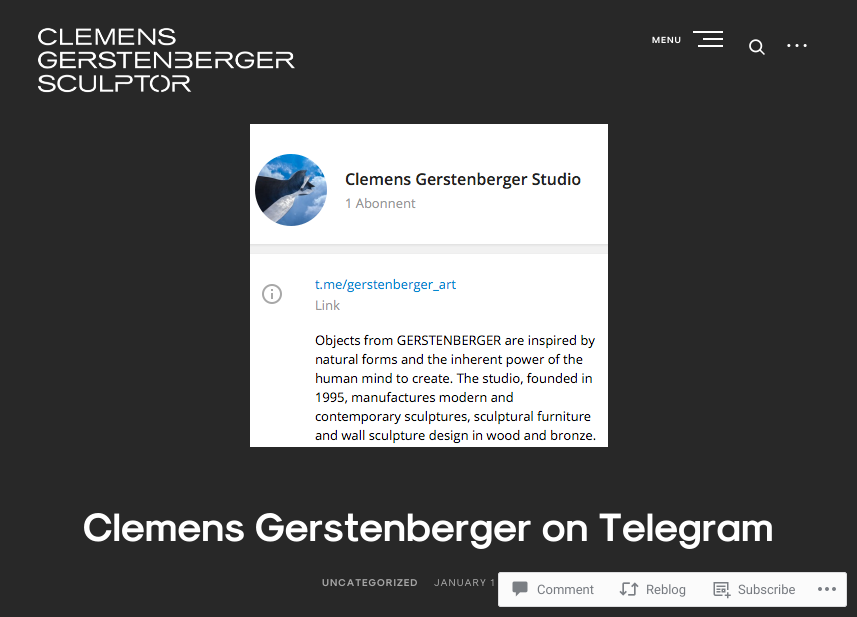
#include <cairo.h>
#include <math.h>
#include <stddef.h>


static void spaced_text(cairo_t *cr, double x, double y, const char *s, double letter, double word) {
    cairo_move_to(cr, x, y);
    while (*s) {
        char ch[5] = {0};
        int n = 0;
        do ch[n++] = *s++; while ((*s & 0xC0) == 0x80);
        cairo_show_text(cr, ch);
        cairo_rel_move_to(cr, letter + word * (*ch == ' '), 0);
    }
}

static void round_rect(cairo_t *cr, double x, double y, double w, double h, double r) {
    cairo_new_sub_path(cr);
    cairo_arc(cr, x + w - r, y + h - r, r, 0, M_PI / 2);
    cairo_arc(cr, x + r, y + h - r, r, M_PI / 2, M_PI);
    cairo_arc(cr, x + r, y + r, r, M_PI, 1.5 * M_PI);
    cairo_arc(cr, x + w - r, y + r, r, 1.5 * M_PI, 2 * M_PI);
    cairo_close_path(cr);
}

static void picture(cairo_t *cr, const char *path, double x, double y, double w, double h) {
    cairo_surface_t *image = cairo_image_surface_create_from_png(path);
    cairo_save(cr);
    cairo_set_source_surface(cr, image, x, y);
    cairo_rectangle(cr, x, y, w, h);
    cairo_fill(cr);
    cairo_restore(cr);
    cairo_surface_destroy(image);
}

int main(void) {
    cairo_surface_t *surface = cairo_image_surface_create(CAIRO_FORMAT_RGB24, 857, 617);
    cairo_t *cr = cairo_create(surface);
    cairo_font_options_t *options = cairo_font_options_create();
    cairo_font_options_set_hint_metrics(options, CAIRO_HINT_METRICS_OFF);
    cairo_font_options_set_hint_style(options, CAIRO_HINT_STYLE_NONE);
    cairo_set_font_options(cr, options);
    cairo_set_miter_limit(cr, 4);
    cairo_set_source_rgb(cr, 0.157, 0.157, 0.157);
    cairo_paint(cr);
    picture(cr, "img1.png", 38, 27, 257, 66);
    cairo_select_font_face(cr, "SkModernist", CAIRO_FONT_SLANT_NORMAL, CAIRO_FONT_WEIGHT_BOLD);
    cairo_set_font_size(cr, 9);
    cairo_set_source_rgb(cr, 1, 1, 1);
    spaced_text(cr, 652, 43, "MENU", 1, 0);
    cairo_rectangle(cr, 703, 38, 20, 2);
    cairo_fill(cr);
    cairo_rectangle(cr, 693, 31, 30, 2);
    cairo_fill(cr);
    cairo_rectangle(cr, 698, 45, 25, 2);
    cairo_fill(cr);
    picture(cr, "img2.png", 749, 39, 16, 16);
    picture(cr, "img3.png", 787, 44, 20, 3);
    picture(cr, "img4.png", 250, 124, 358, 323);
    cairo_set_font_size(cr, 40);
    cairo_move_to(cr, 83, 541);
    cairo_show_text(cr, "Clemens Gerstenberger on Telegram");
    cairo_set_font_size(cr, 10);
    cairo_set_source_rgb(cr, 0.647, 0.647, 0.647);
    spaced_text(cr, 322, 586, "UNCATEGORIZED", 1, 0);
    cairo_select_font_face(cr, "SkModernist", CAIRO_FONT_SLANT_NORMAL, CAIRO_FONT_WEIGHT_NORMAL);
    spaced_text(cr, 434, 586, "JANUARY 1", 1, 0);
    cairo_set_source_rgba(cr, 1, 1, 1, 0.98);
    round_rect(cr, 498, 572, 349, 35, 3);
    cairo_fill(cr);
    round_rect(cr, 498.5, 572.5, 348, 34, 2.5);
    cairo_set_source_rgba(cr, 0.863, 0.863, 0.871, 0.98);
    cairo_set_line_width(cr, 1);
    cairo_stroke(cr);
    picture(cr, "img5.png", 512, 581, 16, 16);
    cairo_select_font_face(cr, "Roboto", CAIRO_FONT_SLANT_NORMAL, CAIRO_FONT_WEIGHT_NORMAL);
    cairo_set_font_size(cr, 13);
    cairo_set_source_rgb(cr, 0.463, 0.478, 0.502);
    cairo_move_to(cr, 537, 594);
    cairo_show_text(cr, "Comment");
    picture(cr, "img6.png", 619, 582, 20, 14);
    cairo_move_to(cr, 646, 594);
    cairo_show_text(cr, "Reblog");
    picture(cr, "img7.png", 713, 582, 18, 17);
    cairo_move_to(cr, 738, 594);
    cairo_show_text(cr, "Subscribe");
    picture(cr, "img8.png", 818, 587, 18, 4);
    cairo_surface_write_to_png(surface, "page.png");
    cairo_font_options_destroy(options);
    cairo_destroy(cr);
    cairo_surface_destroy(surface);
    return 0;
}
